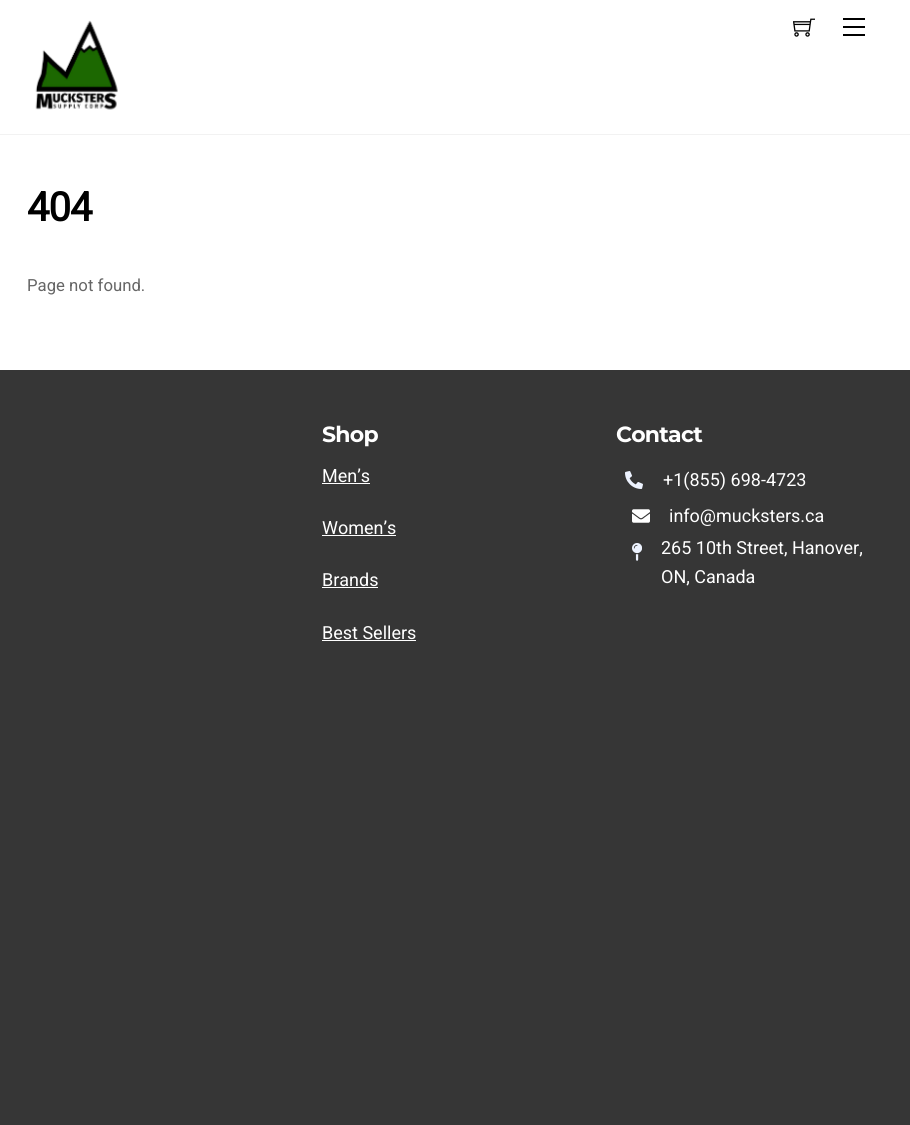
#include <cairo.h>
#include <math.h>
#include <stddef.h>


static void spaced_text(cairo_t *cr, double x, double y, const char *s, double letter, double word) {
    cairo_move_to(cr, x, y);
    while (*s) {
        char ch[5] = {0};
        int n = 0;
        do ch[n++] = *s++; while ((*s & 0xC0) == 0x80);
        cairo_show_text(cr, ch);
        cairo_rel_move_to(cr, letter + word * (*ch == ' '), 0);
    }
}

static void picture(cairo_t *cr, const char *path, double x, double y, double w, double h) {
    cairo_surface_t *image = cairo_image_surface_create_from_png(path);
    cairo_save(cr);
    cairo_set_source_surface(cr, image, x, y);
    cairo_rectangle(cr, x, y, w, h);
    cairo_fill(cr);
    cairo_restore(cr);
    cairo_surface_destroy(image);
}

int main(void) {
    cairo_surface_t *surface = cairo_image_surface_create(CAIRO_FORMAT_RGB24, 910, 1125);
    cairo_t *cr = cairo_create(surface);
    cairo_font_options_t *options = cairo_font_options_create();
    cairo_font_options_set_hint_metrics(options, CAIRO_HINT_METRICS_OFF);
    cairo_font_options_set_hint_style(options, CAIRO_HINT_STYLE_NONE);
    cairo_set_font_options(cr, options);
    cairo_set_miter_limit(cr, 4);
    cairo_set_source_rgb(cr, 1, 1, 1);
    cairo_paint(cr);
    cairo_set_source_rgb(cr, 0.949, 0.949, 0.949);
    cairo_rectangle(cr, 0, 134, 910, 1);
    cairo_fill(cr);
    picture(cr, "img1.png", 35, 20, 83, 90);
    picture(cr, "img2.png", 793, 18, 22, 19);
    cairo_set_source_rgb(cr, 0, 0, 0);
    cairo_rectangle(cr, 843, 34, 22, 2);
    cairo_fill(cr);
    cairo_rectangle(cr, 843, 18, 22, 2);
    cairo_fill(cr);
    cairo_rectangle(cr, 843, 26, 22, 2);
    cairo_fill(cr);
    cairo_select_font_face(cr, "Roboto", CAIRO_FONT_SLANT_NORMAL, CAIRO_FONT_WEIGHT_BOLD);
    cairo_set_font_size(cr, 40);
    spaced_text(cr, 27, 221, "404", -1, 0);
    cairo_select_font_face(cr, "Roboto", CAIRO_FONT_SLANT_NORMAL, CAIRO_FONT_WEIGHT_NORMAL);
    cairo_set_font_size(cr, 16.75);
    cairo_set_source_rgb(cr, 0.4, 0.4, 0.4);
    cairo_move_to(cr, 27, 291);
    cairo_show_text(cr, "Page not found.");
    cairo_set_source_rgb(cr, 0.212, 0.212, 0.212);
    cairo_rectangle(cr, 0, 370, 910, 755);
    cairo_fill(cr);
    cairo_select_font_face(cr, "Montserrat Thin", CAIRO_FONT_SLANT_NORMAL, CAIRO_FONT_WEIGHT_NORMAL);
    cairo_set_font_size(cr, 22);
    cairo_set_source_rgb(cr, 1, 1, 1);
    spaced_text(cr, 322, 442, "Shop", -0.75, 0);
    cairo_select_font_face(cr, "Roboto", CAIRO_FONT_SLANT_NORMAL, CAIRO_FONT_WEIGHT_NORMAL);
    cairo_set_font_size(cr, 18);
    cairo_move_to(cr, 322, 482);
    cairo_show_text(cr, "Men’s");
    cairo_rectangle(cr, 322, 483, 48, 1);
    cairo_fill(cr);
    cairo_move_to(cr, 322, 534);
    cairo_show_text(cr, "Women’s");
    cairo_rectangle(cr, 322, 535, 74, 1);
    cairo_fill(cr);
    cairo_move_to(cr, 322, 586);
    cairo_show_text(cr, "Brands");
    cairo_rectangle(cr, 322, 587, 56, 1);
    cairo_fill(cr);
    cairo_move_to(cr, 322, 639);
    cairo_show_text(cr, "Best Sellers");
    cairo_rectangle(cr, 322, 640, 94, 1);
    cairo_fill(cr);
    cairo_select_font_face(cr, "Montserrat Thin", CAIRO_FONT_SLANT_NORMAL, CAIRO_FONT_WEIGHT_NORMAL);
    cairo_set_font_size(cr, 22);
    spaced_text(cr, 616, 442, "Contact", -0.75, 0);
    picture(cr, "img3.png", 625, 471, 18, 18);
    cairo_select_font_face(cr, "Roboto", CAIRO_FONT_SLANT_NORMAL, CAIRO_FONT_WEIGHT_NORMAL);
    cairo_set_font_size(cr, 18);
    cairo_move_to(cr, 663, 486);
    cairo_show_text(cr, "+1(855) 698-4723");
    picture(cr, "img4.png", 632, 509, 18, 14);
    cairo_move_to(cr, 669, 522);
    cairo_show_text(cr, "info@mucksters.ca");
    picture(cr, "img5.png", 632, 543, 10, 18);
    cairo_move_to(cr, 661, 554);
    cairo_show_text(cr, "265 10th Street, Hanover,");
    cairo_move_to(cr, 661, 583);
    cairo_show_text(cr, "ON, Canada");
    cairo_surface_write_to_png(surface, "page.png");
    cairo_font_options_destroy(options);
    cairo_destroy(cr);
    cairo_surface_destroy(surface);
    return 0;
}
